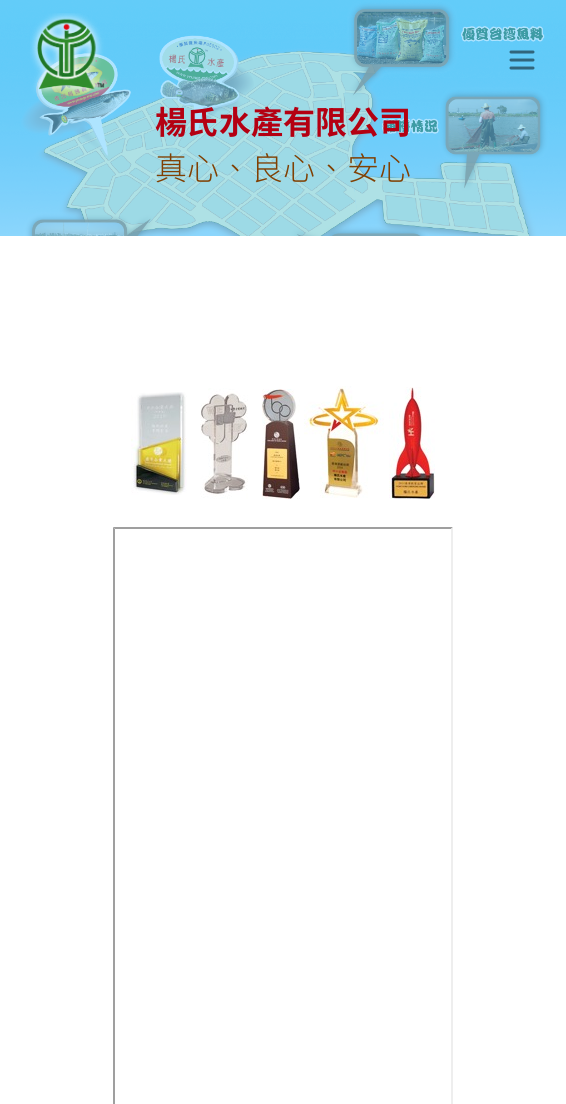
#include <cairo.h>
#include <math.h>
#include <stddef.h>


static void picture(cairo_t *cr, const char *path, double x, double y, double w, double h) {
    cairo_surface_t *image = cairo_image_surface_create_from_png(path);
    cairo_save(cr);
    cairo_set_source_surface(cr, image, x, y);
    cairo_rectangle(cr, x, y, w, h);
    cairo_fill(cr);
    cairo_restore(cr);
    cairo_surface_destroy(image);
}

int main(void) {
    cairo_surface_t *surface = cairo_image_surface_create(CAIRO_FORMAT_RGB24, 566, 1104);
    cairo_t *cr = cairo_create(surface);
    cairo_font_options_t *options = cairo_font_options_create();
    cairo_font_options_set_hint_metrics(options, CAIRO_HINT_METRICS_OFF);
    cairo_font_options_set_hint_style(options, CAIRO_HINT_STYLE_NONE);
    cairo_set_font_options(cr, options);
    cairo_set_miter_limit(cr, 4);
    cairo_set_source_rgb(cr, 1, 1, 1);
    cairo_paint(cr);
    picture(cr, "img2.png", 0, 0, 566, 236);
    picture(cr, "img1.png", 30, 13, 80, 83);
    cairo_new_path(cr);
    cairo_move_to(cr, 511, 52);
    cairo_line_to(cr, 533, 52);
    cairo_move_to(cr, 511, 60);
    cairo_line_to(cr, 533, 60);
    cairo_move_to(cr, 511, 68);
    cairo_line_to(cr, 533, 68);
    cairo_set_source_rgba(cr, 0, 0, 0, 0.5);
    cairo_set_line_width(cr, 3);
    cairo_set_line_cap(cr, CAIRO_LINE_CAP_ROUND);
    cairo_stroke(cr);
    cairo_select_font_face(cr, "Chiron Hei HK", CAIRO_FONT_SLANT_NORMAL, CAIRO_FONT_WEIGHT_BOLD);
    cairo_set_font_size(cr, 32);
    cairo_set_source_rgb(cr, 0.706, 0, 0.071);
    cairo_move_to(cr, 155, 134);
    cairo_show_text(cr, "楊氏水產有限公司");
    cairo_select_font_face(cr, "Chiron Hei HK Light", CAIRO_FONT_SLANT_NORMAL, CAIRO_FONT_WEIGHT_NORMAL);
    cairo_set_source_rgb(cr, 0.502, 0.251, 0.012);
    cairo_move_to(cr, 155, 180);
    cairo_show_text(cr, "真心、良心、安心");
    picture(cr, "img3.png", 131, 392, 56, 103);
    picture(cr, "img4.png", 200, 388, 48, 111);
    picture(cr, "img5.png", 262, 389, 38, 110);
    picture(cr, "img6.png", 304, 386, 80, 112);
    picture(cr, "img7.png", 389, 387, 46, 112);
    cairo_set_source_rgb(cr, 0.624, 0.624, 0.624);
    cairo_new_path(cr);
    cairo_move_to(cr, 113, 527);
    cairo_line_to(cr, 453, 527);
    cairo_line_to(cr, 451, 529);
    cairo_line_to(cr, 115, 529);
    cairo_close_path(cr);
    cairo_fill(cr);
    cairo_new_path(cr);
    cairo_move_to(cr, 113, 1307);
    cairo_line_to(cr, 113, 527);
    cairo_line_to(cr, 115, 529);
    cairo_line_to(cr, 115, 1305);
    cairo_close_path(cr);
    cairo_fill(cr);
    cairo_set_source_rgb(cr, 0.933, 0.933, 0.933);
    cairo_new_path(cr);
    cairo_move_to(cr, 453, 527);
    cairo_line_to(cr, 453, 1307);
    cairo_line_to(cr, 451, 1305);
    cairo_line_to(cr, 451, 529);
    cairo_close_path(cr);
    cairo_fill(cr);
    cairo_surface_write_to_png(surface, "page.png");
    cairo_font_options_destroy(options);
    cairo_destroy(cr);
    cairo_surface_destroy(surface);
    return 0;
}
